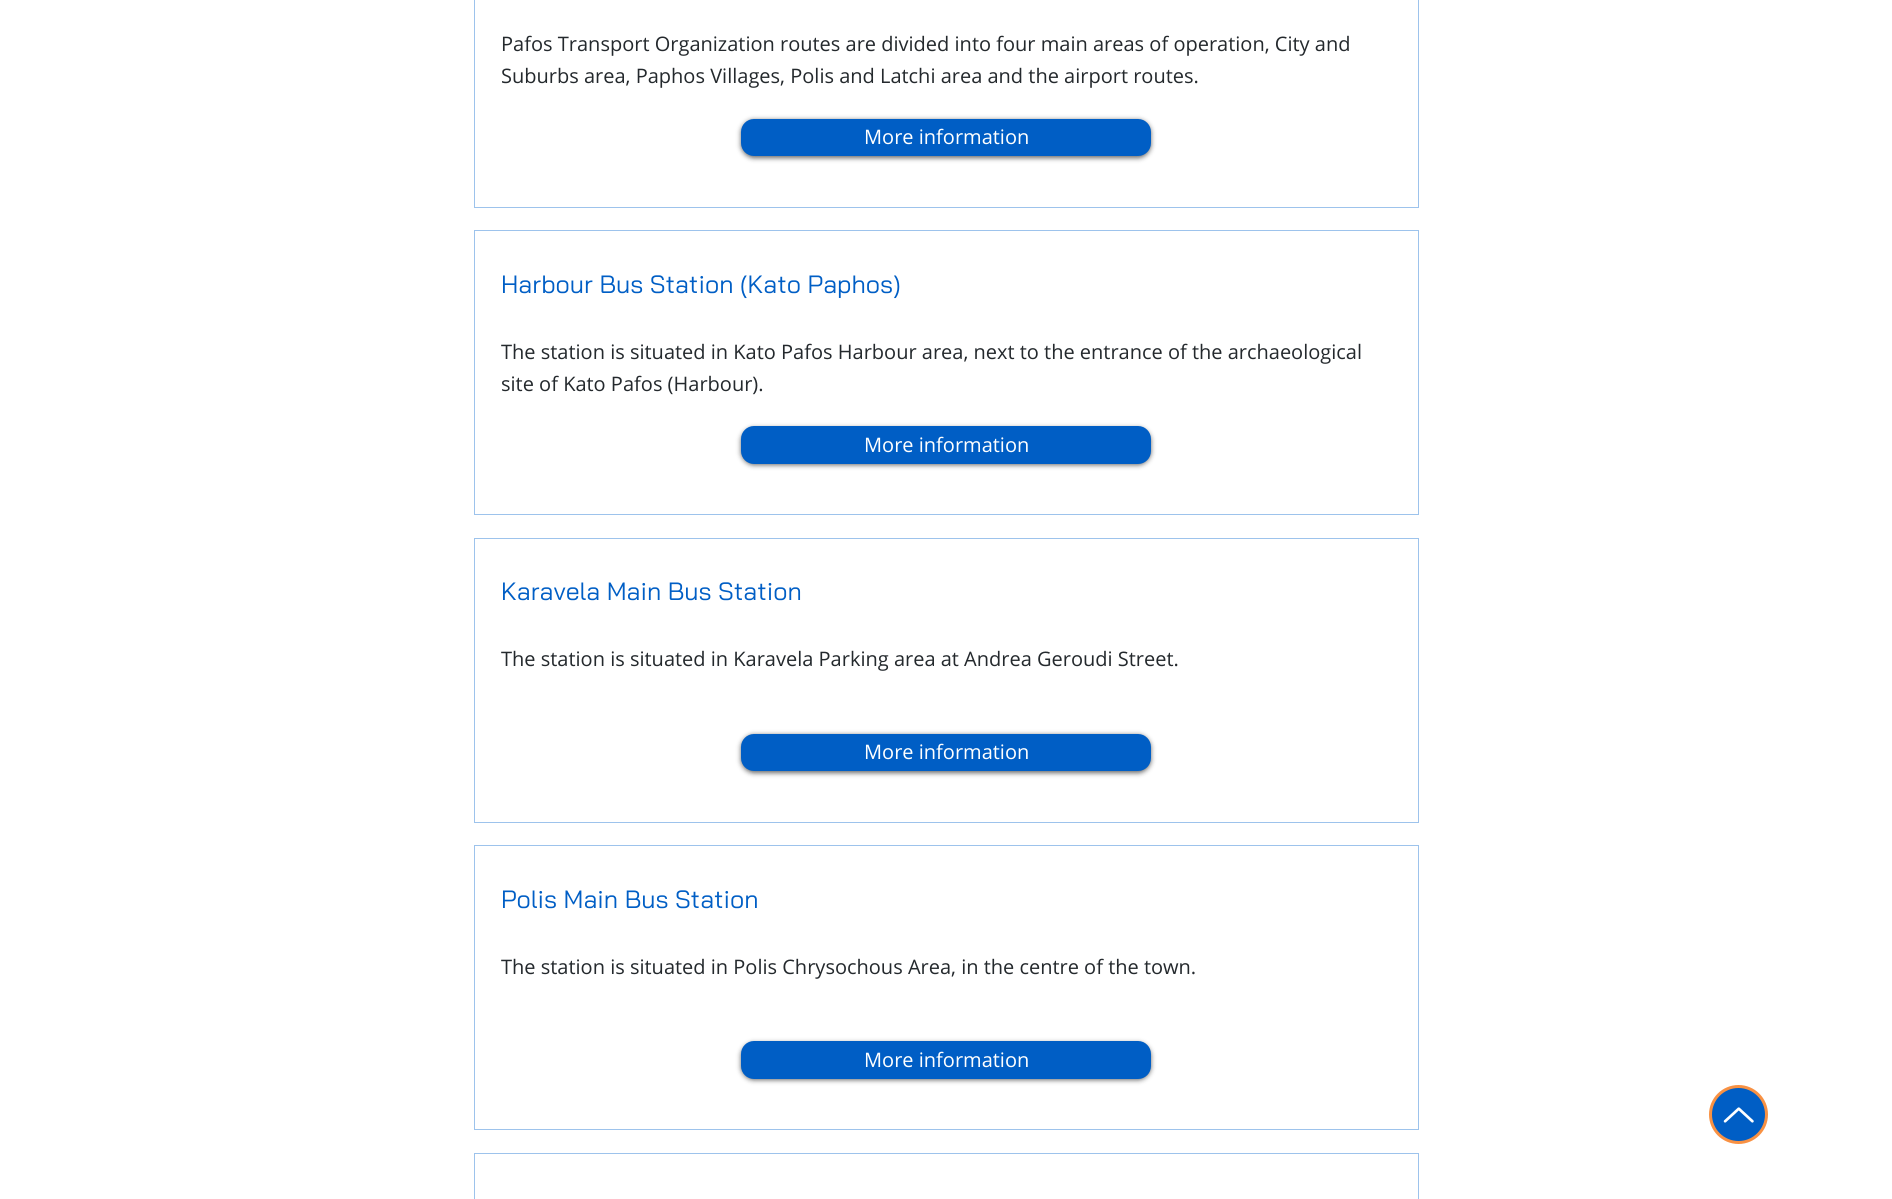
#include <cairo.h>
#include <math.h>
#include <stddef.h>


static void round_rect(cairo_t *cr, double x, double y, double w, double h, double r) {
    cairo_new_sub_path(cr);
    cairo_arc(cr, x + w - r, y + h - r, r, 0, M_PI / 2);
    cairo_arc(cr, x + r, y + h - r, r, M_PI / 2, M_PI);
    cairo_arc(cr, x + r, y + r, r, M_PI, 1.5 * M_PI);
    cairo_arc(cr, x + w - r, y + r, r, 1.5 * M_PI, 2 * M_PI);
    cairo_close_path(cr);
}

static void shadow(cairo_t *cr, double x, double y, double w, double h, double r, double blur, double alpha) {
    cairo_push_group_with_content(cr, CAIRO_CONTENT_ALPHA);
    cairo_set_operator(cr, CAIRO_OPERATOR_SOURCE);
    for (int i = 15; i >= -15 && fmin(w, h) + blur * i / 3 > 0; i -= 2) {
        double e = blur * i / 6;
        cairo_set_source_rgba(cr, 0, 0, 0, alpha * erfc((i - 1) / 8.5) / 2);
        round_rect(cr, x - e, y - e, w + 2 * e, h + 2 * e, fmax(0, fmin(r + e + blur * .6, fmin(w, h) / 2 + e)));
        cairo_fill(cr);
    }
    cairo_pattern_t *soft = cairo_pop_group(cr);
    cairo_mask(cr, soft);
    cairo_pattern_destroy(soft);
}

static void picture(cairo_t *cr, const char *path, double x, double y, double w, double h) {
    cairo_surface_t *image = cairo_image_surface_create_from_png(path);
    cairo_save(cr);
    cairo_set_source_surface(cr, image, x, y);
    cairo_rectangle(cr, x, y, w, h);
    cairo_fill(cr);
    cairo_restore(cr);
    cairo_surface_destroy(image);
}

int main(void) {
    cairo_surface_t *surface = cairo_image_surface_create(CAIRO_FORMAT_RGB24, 1892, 1199);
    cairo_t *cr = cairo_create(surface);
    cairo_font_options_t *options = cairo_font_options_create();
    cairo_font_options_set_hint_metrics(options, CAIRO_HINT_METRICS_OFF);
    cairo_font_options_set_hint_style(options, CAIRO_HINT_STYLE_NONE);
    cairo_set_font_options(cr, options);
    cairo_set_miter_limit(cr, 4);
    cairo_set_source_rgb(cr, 1, 1, 1);
    cairo_paint(cr);
    cairo_rectangle(cr, 474.5, -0.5, 944, 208);
    cairo_set_source_rgb(cr, 0.616, 0.765, 0.925);
    cairo_set_line_width(cr, 1);
    cairo_stroke(cr);
    cairo_select_font_face(cr, "Open Sans", CAIRO_FONT_SLANT_NORMAL, CAIRO_FONT_WEIGHT_NORMAL);
    cairo_set_font_size(cr, 20);
    cairo_set_source_rgb(cr, 0.141, 0.161, 0.176);
    cairo_move_to(cr, 501, 51);
    cairo_show_text(cr, "Pafos Transport Organization routes are divided into four main areas of operation, City and");
    cairo_move_to(cr, 501, 83);
    cairo_show_text(cr, "Suburbs area, Paphos Villages, Polis and Latchi area and the airport routes.");
    cairo_set_source_rgb(cr, 0, 0, 0);
    shadow(cr, 741, 120, 410, 38, 13, 2.5, 0.6);
    cairo_set_source_rgb(cr, 0, 0.369, 0.773);
    round_rect(cr, 741, 119, 410, 37, 13);
    cairo_fill(cr);
    cairo_set_source_rgb(cr, 1, 1, 1);
    cairo_move_to(cr, 864, 144);
    cairo_show_text(cr, "More information");
    cairo_rectangle(cr, 474.5, 230.5, 944, 284);
    cairo_set_source_rgb(cr, 0.616, 0.765, 0.925);
    cairo_stroke(cr);
    cairo_select_font_face(cr, "Bai Jamjuree", CAIRO_FONT_SLANT_NORMAL, CAIRO_FONT_WEIGHT_NORMAL);
    cairo_set_font_size(cr, 25);
    cairo_set_source_rgb(cr, 0, 0.369, 0.773);
    cairo_move_to(cr, 501, 293);
    cairo_show_text(cr, "Harbour Bus Station (Kato Paphos)");
    cairo_select_font_face(cr, "Open Sans", CAIRO_FONT_SLANT_NORMAL, CAIRO_FONT_WEIGHT_NORMAL);
    cairo_set_font_size(cr, 20);
    cairo_set_source_rgb(cr, 0.141, 0.161, 0.176);
    cairo_move_to(cr, 501, 359);
    cairo_show_text(cr, "The station is situated in Kato Pafos Harbour area, next to the entrance of the archaeological");
    cairo_move_to(cr, 501, 391);
    cairo_show_text(cr, "site of Kato Pafos (Harbour).");
    cairo_set_source_rgb(cr, 0, 0, 0);
    shadow(cr, 741, 428, 410, 37, 13, 2.5, 0.6);
    cairo_set_source_rgb(cr, 0, 0.369, 0.773);
    round_rect(cr, 741, 426, 410, 38, 13);
    cairo_fill(cr);
    cairo_set_source_rgb(cr, 1, 1, 1);
    cairo_move_to(cr, 864, 452);
    cairo_show_text(cr, "More information");
    cairo_rectangle(cr, 474.5, 538.5, 944, 284);
    cairo_set_source_rgb(cr, 0.616, 0.765, 0.925);
    cairo_stroke(cr);
    cairo_select_font_face(cr, "Bai Jamjuree", CAIRO_FONT_SLANT_NORMAL, CAIRO_FONT_WEIGHT_NORMAL);
    cairo_set_font_size(cr, 25);
    cairo_set_source_rgb(cr, 0, 0.369, 0.773);
    cairo_move_to(cr, 501, 600);
    cairo_show_text(cr, "Karavela Main Bus Station");
    cairo_select_font_face(cr, "Open Sans", CAIRO_FONT_SLANT_NORMAL, CAIRO_FONT_WEIGHT_NORMAL);
    cairo_set_font_size(cr, 20);
    cairo_set_source_rgb(cr, 0.141, 0.161, 0.176);
    cairo_move_to(cr, 501, 666);
    cairo_show_text(cr, "The station is situated in Karavela Parking area at Andrea Geroudi Street.");
    cairo_set_source_rgb(cr, 0, 0, 0);
    shadow(cr, 741, 735, 410, 38, 13, 2.5, 0.6);
    cairo_set_source_rgb(cr, 0, 0.369, 0.773);
    round_rect(cr, 741, 734, 410, 37, 13);
    cairo_fill(cr);
    cairo_set_source_rgb(cr, 1, 1, 1);
    cairo_move_to(cr, 864, 759);
    cairo_show_text(cr, "More information");
    cairo_rectangle(cr, 474.5, 845.5, 944, 284);
    cairo_set_source_rgb(cr, 0.616, 0.765, 0.925);
    cairo_stroke(cr);
    cairo_select_font_face(cr, "Bai Jamjuree", CAIRO_FONT_SLANT_NORMAL, CAIRO_FONT_WEIGHT_NORMAL);
    cairo_set_font_size(cr, 25);
    cairo_set_source_rgb(cr, 0, 0.369, 0.773);
    cairo_move_to(cr, 501, 908);
    cairo_show_text(cr, "Polis Main Bus Station");
    cairo_select_font_face(cr, "Open Sans", CAIRO_FONT_SLANT_NORMAL, CAIRO_FONT_WEIGHT_NORMAL);
    cairo_set_font_size(cr, 20);
    cairo_set_source_rgb(cr, 0.141, 0.161, 0.176);
    cairo_move_to(cr, 501, 974);
    cairo_show_text(cr, "The station is situated in Polis Chrysochous Area, in the centre of the town.");
    cairo_set_source_rgb(cr, 0, 0, 0);
    shadow(cr, 741, 1043, 410, 37, 13, 2.5, 0.6);
    cairo_set_source_rgb(cr, 0, 0.369, 0.773);
    round_rect(cr, 741, 1041, 410, 38, 13);
    cairo_fill(cr);
    cairo_set_source_rgb(cr, 1, 1, 1);
    cairo_move_to(cr, 864, 1067);
    cairo_show_text(cr, "More information");
    cairo_rectangle(cr, 474.5, 1153.5, 944, 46);
    cairo_set_source_rgb(cr, 0.616, 0.765, 0.925);
    cairo_stroke(cr);
    cairo_set_source_rgb(cr, 0, 0.369, 0.773);
    cairo_arc(cr, 1738.5, 1114.5, 28, 0, 2 * M_PI);
    cairo_fill_preserve(cr);
    cairo_set_source_rgb(cr, 0.969, 0.569, 0.263);
    cairo_set_line_width(cr, 3);
    cairo_stroke(cr);
    picture(cr, "img1.png", 1723, 1107, 31, 16);
    cairo_surface_write_to_png(surface, "page.png");
    cairo_font_options_destroy(options);
    cairo_destroy(cr);
    cairo_surface_destroy(surface);
    return 0;
}
